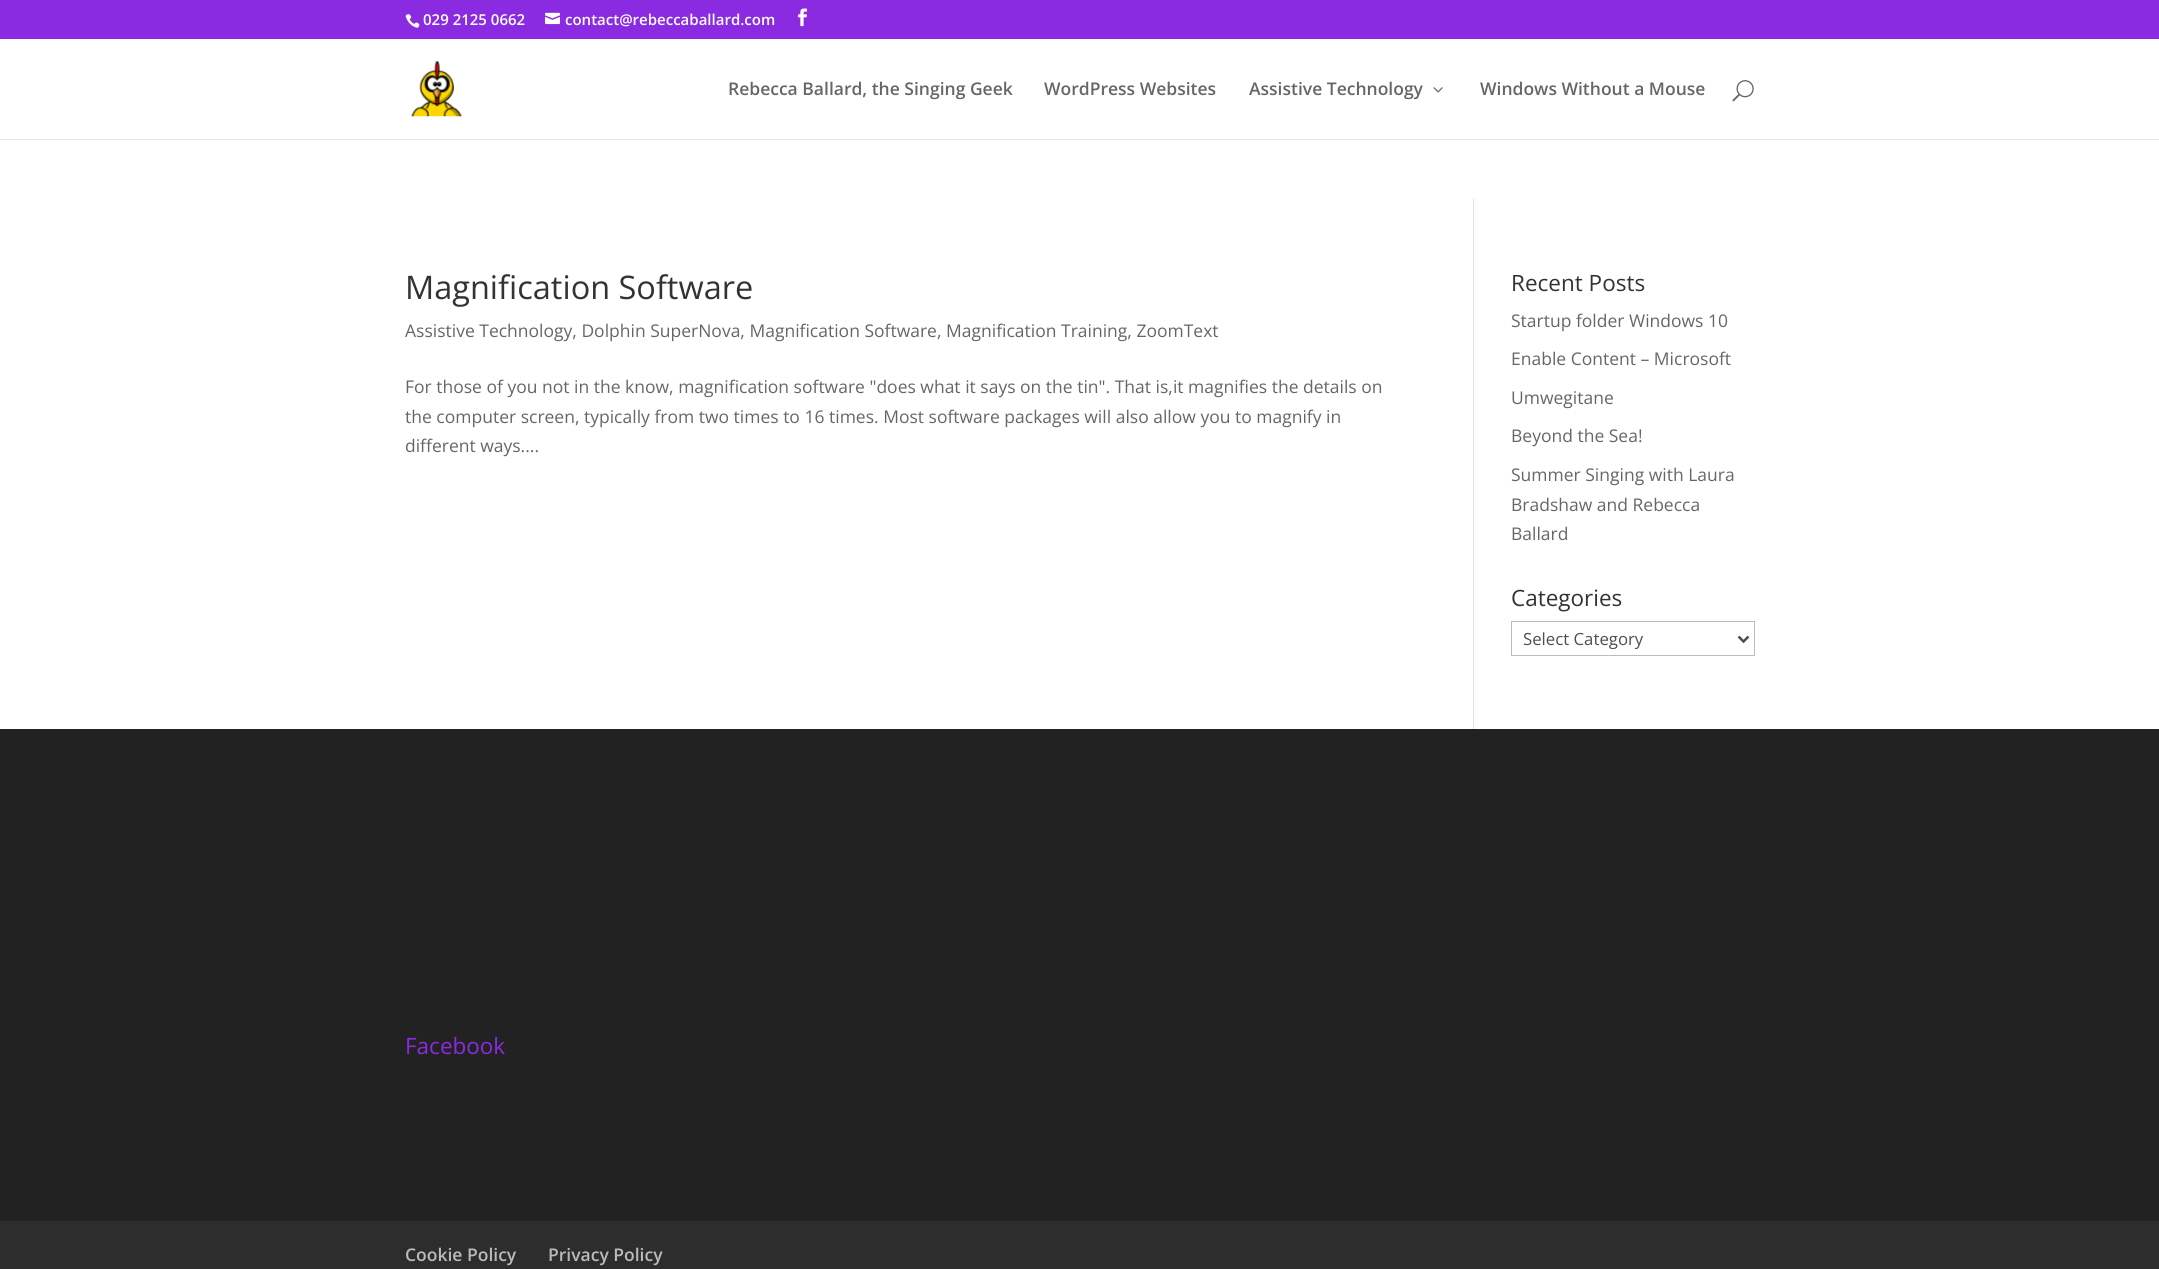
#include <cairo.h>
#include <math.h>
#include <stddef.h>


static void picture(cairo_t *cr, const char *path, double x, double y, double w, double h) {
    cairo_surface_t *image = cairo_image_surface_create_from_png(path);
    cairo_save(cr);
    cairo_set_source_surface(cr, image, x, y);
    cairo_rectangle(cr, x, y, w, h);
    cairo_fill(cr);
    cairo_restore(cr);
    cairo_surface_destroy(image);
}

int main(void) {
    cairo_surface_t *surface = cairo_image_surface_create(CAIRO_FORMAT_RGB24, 2159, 1269);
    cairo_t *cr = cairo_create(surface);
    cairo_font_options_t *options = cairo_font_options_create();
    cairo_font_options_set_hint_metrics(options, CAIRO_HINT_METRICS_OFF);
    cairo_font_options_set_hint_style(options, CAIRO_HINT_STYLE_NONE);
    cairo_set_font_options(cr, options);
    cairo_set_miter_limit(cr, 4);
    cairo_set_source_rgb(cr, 1, 1, 1);
    cairo_paint(cr);
    cairo_set_source_rgb(cr, 0.541, 0.169, 0.886);
    cairo_rectangle(cr, 0, 0, 2159, 39);
    cairo_fill(cr);
    picture(cr, "img1.png", 405, 14, 15, 14);
    cairo_select_font_face(cr, "Open Sans SemiBold", CAIRO_FONT_SLANT_NORMAL, CAIRO_FONT_WEIGHT_NORMAL);
    cairo_set_font_size(cr, 15);
    cairo_set_source_rgb(cr, 1, 1, 1);
    cairo_move_to(cr, 423, 25);
    cairo_show_text(cr, "029 2125 0662");
    picture(cr, "img2.png", 545, 12, 15, 13);
    cairo_move_to(cr, 565, 25);
    cairo_show_text(cr, "contact@rebeccaballard.com");
    picture(cr, "img3.png", 798, 8, 9, 19);
    cairo_set_source_rgb(cr, 0.902, 0.902, 0.902);
    cairo_rectangle(cr, 0, 139, 2159, 1);
    cairo_fill(cr);
    picture(cr, "img4.png", 411, 61, 51, 56);
    cairo_set_font_size(cr, 17.5);
    cairo_set_source_rgb(cr, 0.4, 0.4, 0.4);
    cairo_move_to(cr, 728, 95);
    cairo_show_text(cr, "Rebecca Ballard, the Singing Geek");
    cairo_move_to(cr, 1044, 95);
    cairo_show_text(cr, "WordPress Websites");
    cairo_move_to(cr, 1249, 95);
    cairo_show_text(cr, "Assistive Technology");
    picture(cr, "img5.png", 1433, 87, 10, 6);
    cairo_move_to(cr, 1480, 95);
    cairo_show_text(cr, "Windows Without a Mouse");
    picture(cr, "img6.png", 1732, 80, 22, 22);
    cairo_set_source_rgb(cr, 0.886, 0.886, 0.886);
    cairo_rectangle(cr, 1473, 199, 1, 530);
    cairo_fill(cr);
    cairo_select_font_face(cr, "Open Sans", CAIRO_FONT_SLANT_NORMAL, CAIRO_FONT_WEIGHT_NORMAL);
    cairo_set_font_size(cr, 32.5);
    cairo_set_source_rgb(cr, 0.2, 0.2, 0.2);
    cairo_move_to(cr, 405, 299);
    cairo_show_text(cr, "Magnification Software");
    cairo_set_font_size(cr, 17.5);
    cairo_set_source_rgb(cr, 0.4, 0.4, 0.4);
    cairo_move_to(cr, 405, 337);
    cairo_show_text(cr, "Assistive Technology, Dolphin SuperNova, Magnification Software, Magnification Training, ZoomText");
    cairo_move_to(cr, 405, 393);
    cairo_show_text(cr, "For those of you not in the know, magnification software \"does what it says on the tin\". That is,it magnifies the details on");
    cairo_move_to(cr, 405, 423);
    cairo_show_text(cr, "the computer screen, typically from two times to 16 times. Most software packages will also allow you to magnify in");
    cairo_move_to(cr, 405, 452);
    cairo_show_text(cr, "different ways....");
    cairo_set_font_size(cr, 22.5);
    cairo_set_source_rgb(cr, 0.2, 0.2, 0.2);
    cairo_move_to(cr, 1511, 291);
    cairo_show_text(cr, "Recent Posts");
    cairo_set_font_size(cr, 17.5);
    cairo_set_source_rgb(cr, 0.4, 0.4, 0.4);
    cairo_move_to(cr, 1511, 327);
    cairo_show_text(cr, "Startup folder Windows 10");
    cairo_move_to(cr, 1511, 365);
    cairo_show_text(cr, "Enable Content – Microsoft");
    cairo_move_to(cr, 1511, 404);
    cairo_show_text(cr, "Umwegitane");
    cairo_move_to(cr, 1511, 442);
    cairo_show_text(cr, "Beyond the Sea!");
    cairo_move_to(cr, 1511, 481);
    cairo_show_text(cr, "Summer Singing with Laura");
    cairo_move_to(cr, 1511, 511);
    cairo_show_text(cr, "Bradshaw and Rebecca");
    cairo_move_to(cr, 1511, 540);
    cairo_show_text(cr, "Ballard");
    cairo_set_font_size(cr, 22.5);
    cairo_set_source_rgb(cr, 0.2, 0.2, 0.2);
    cairo_move_to(cr, 1511, 606);
    cairo_show_text(cr, "Categories");
    cairo_rectangle(cr, 1511.5, 621.5, 243, 34);
    cairo_set_source_rgb(cr, 0.733, 0.733, 0.733);
    cairo_set_line_width(cr, 1);
    cairo_stroke(cr);
    cairo_new_path(cr);
    cairo_move_to(cr, 1738.5, 636.5);
    cairo_line_to(cr, 1743.5, 641.5);
    cairo_line_to(cr, 1748.5, 636.5);
    cairo_set_source_rgb(cr, 0.306, 0.306, 0.306);
    cairo_set_line_width(cr, 2.5);
    cairo_stroke(cr);
    cairo_set_font_size(cr, 16.75);
    cairo_move_to(cr, 1523, 645);
    cairo_show_text(cr, "Select Category");
    cairo_set_source_rgb(cr, 0.133, 0.133, 0.133);
    cairo_rectangle(cr, 0, 729, 2159, 492);
    cairo_fill(cr);
    cairo_set_font_size(cr, 22.5);
    cairo_set_source_rgb(cr, 0.541, 0.169, 0.886);
    cairo_move_to(cr, 405, 1054);
    cairo_show_text(cr, "Facebook");
    cairo_set_source_rgb(cr, 0.176, 0.176, 0.176);
    cairo_rectangle(cr, 0, 1221, 2159, 48);
    cairo_fill(cr);
    cairo_select_font_face(cr, "Open Sans SemiBold", CAIRO_FONT_SLANT_NORMAL, CAIRO_FONT_WEIGHT_NORMAL);
    cairo_set_font_size(cr, 17.5);
    cairo_set_source_rgb(cr, 0.733, 0.733, 0.733);
    cairo_move_to(cr, 405, 1261);
    cairo_show_text(cr, "Cookie Policy");
    cairo_move_to(cr, 548, 1261);
    cairo_show_text(cr, "Privacy Policy");
    cairo_surface_write_to_png(surface, "page.png");
    cairo_font_options_destroy(options);
    cairo_destroy(cr);
    cairo_surface_destroy(surface);
    return 0;
}
